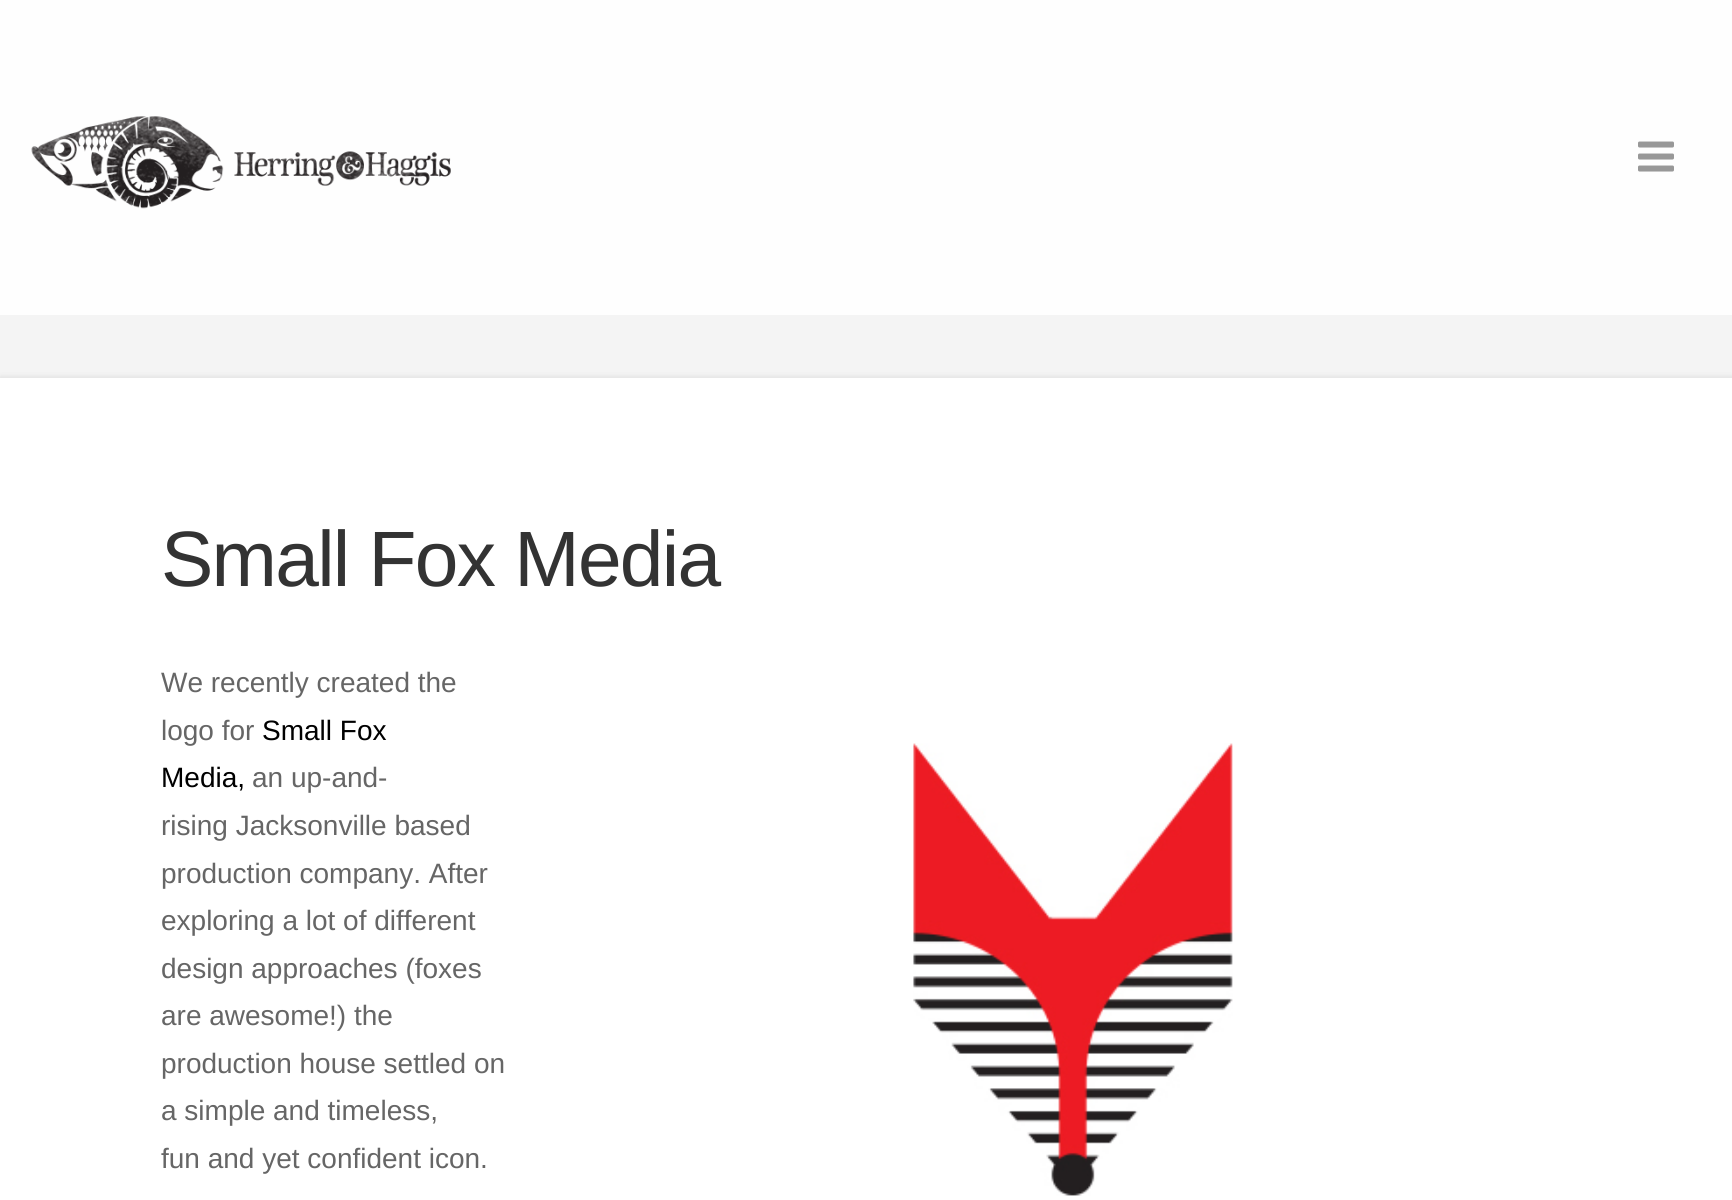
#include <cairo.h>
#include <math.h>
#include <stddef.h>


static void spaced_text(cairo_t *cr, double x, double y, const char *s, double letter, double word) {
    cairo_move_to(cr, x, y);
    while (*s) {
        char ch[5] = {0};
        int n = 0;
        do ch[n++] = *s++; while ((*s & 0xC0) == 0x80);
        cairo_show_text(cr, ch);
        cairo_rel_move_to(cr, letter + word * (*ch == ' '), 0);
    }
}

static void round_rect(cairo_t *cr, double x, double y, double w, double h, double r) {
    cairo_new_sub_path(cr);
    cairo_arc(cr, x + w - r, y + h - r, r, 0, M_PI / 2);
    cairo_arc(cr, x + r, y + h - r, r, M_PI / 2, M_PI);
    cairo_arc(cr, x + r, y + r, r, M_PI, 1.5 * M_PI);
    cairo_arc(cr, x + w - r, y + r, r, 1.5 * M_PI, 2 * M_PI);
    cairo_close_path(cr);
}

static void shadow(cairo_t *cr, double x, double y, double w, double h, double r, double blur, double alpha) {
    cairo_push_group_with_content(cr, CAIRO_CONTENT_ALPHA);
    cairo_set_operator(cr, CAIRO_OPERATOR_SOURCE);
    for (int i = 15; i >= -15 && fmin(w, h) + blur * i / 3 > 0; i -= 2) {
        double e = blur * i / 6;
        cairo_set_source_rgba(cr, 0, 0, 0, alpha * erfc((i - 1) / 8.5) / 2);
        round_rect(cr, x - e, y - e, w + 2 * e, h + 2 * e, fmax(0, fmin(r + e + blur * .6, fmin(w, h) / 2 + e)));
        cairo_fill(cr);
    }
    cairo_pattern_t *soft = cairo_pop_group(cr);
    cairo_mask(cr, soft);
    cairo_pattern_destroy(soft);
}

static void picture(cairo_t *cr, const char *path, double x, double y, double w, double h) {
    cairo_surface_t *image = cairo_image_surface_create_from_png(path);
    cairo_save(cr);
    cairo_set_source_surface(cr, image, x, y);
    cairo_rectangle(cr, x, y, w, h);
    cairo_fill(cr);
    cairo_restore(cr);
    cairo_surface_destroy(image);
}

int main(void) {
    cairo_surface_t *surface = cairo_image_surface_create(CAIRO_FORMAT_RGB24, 1732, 1200);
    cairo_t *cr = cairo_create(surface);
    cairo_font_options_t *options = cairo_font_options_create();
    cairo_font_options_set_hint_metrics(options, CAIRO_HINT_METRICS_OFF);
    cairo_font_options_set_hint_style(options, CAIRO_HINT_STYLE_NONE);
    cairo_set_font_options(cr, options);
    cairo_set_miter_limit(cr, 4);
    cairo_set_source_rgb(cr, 0.957, 0.957, 0.957);
    cairo_paint(cr);
    cairo_set_source_rgb(cr, 0.996, 0.996, 0.996);
    cairo_rectangle(cr, 0, 0, 1732, 315);
    cairo_fill(cr);
    picture(cr, "img1.png", 31, 116, 420, 93);
    picture(cr, "img2.png", 1638, 141, 36, 31);
    cairo_set_source_rgb(cr, 0, 0, 0);
    shadow(cr, 0, 378, 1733, 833, 0, 3.5, 0.12);
    cairo_set_source_rgb(cr, 1, 1, 1);
    cairo_rectangle(cr, 0, 378, 1732, 822);
    cairo_fill(cr);
    cairo_select_font_face(cr, "Arimo", CAIRO_FONT_SLANT_NORMAL, CAIRO_FONT_WEIGHT_NORMAL);
    cairo_set_font_size(cr, 78.5);
    cairo_set_source_rgb(cr, 0.2, 0.2, 0.2);
    spaced_text(cr, 161, 586, "Small Fox Media", -1.75, 0);
    cairo_set_font_size(cr, 28);
    cairo_set_source_rgb(cr, 0.4, 0.4, 0.4);
    cairo_move_to(cr, 161, 692);
    cairo_show_text(cr, "We recently created the");
    cairo_move_to(cr, 161, 740);
    cairo_show_text(cr, "logo for");
    cairo_set_source_rgb(cr, 0, 0, 0);
    cairo_move_to(cr, 262, 740);
    cairo_show_text(cr, "Small Fox");
    cairo_move_to(cr, 161, 787);
    cairo_show_text(cr, "Media,");
    cairo_set_source_rgb(cr, 0.4, 0.4, 0.4);
    cairo_move_to(cr, 252, 787);
    cairo_show_text(cr, "an up-and-");
    picture(cr, "img3.png", 913, 743, 320, 453);
    cairo_move_to(cr, 161, 835);
    cairo_show_text(cr, "rising Jacksonville based");
    cairo_move_to(cr, 161, 883);
    cairo_show_text(cr, "production company. After");
    cairo_move_to(cr, 161, 930);
    cairo_show_text(cr, "exploring a lot of different");
    cairo_move_to(cr, 161, 978);
    cairo_show_text(cr, "design approaches (foxes");
    cairo_move_to(cr, 161, 1025);
    cairo_show_text(cr, "are awesome!) the");
    cairo_move_to(cr, 161, 1073);
    cairo_show_text(cr, "production house settled on");
    cairo_move_to(cr, 161, 1120);
    cairo_show_text(cr, "a simple and timeless,");
    cairo_move_to(cr, 161, 1168);
    cairo_show_text(cr, "fun and yet confident icon.");
    cairo_surface_write_to_png(surface, "page.png");
    cairo_font_options_destroy(options);
    cairo_destroy(cr);
    cairo_surface_destroy(surface);
    return 0;
}
